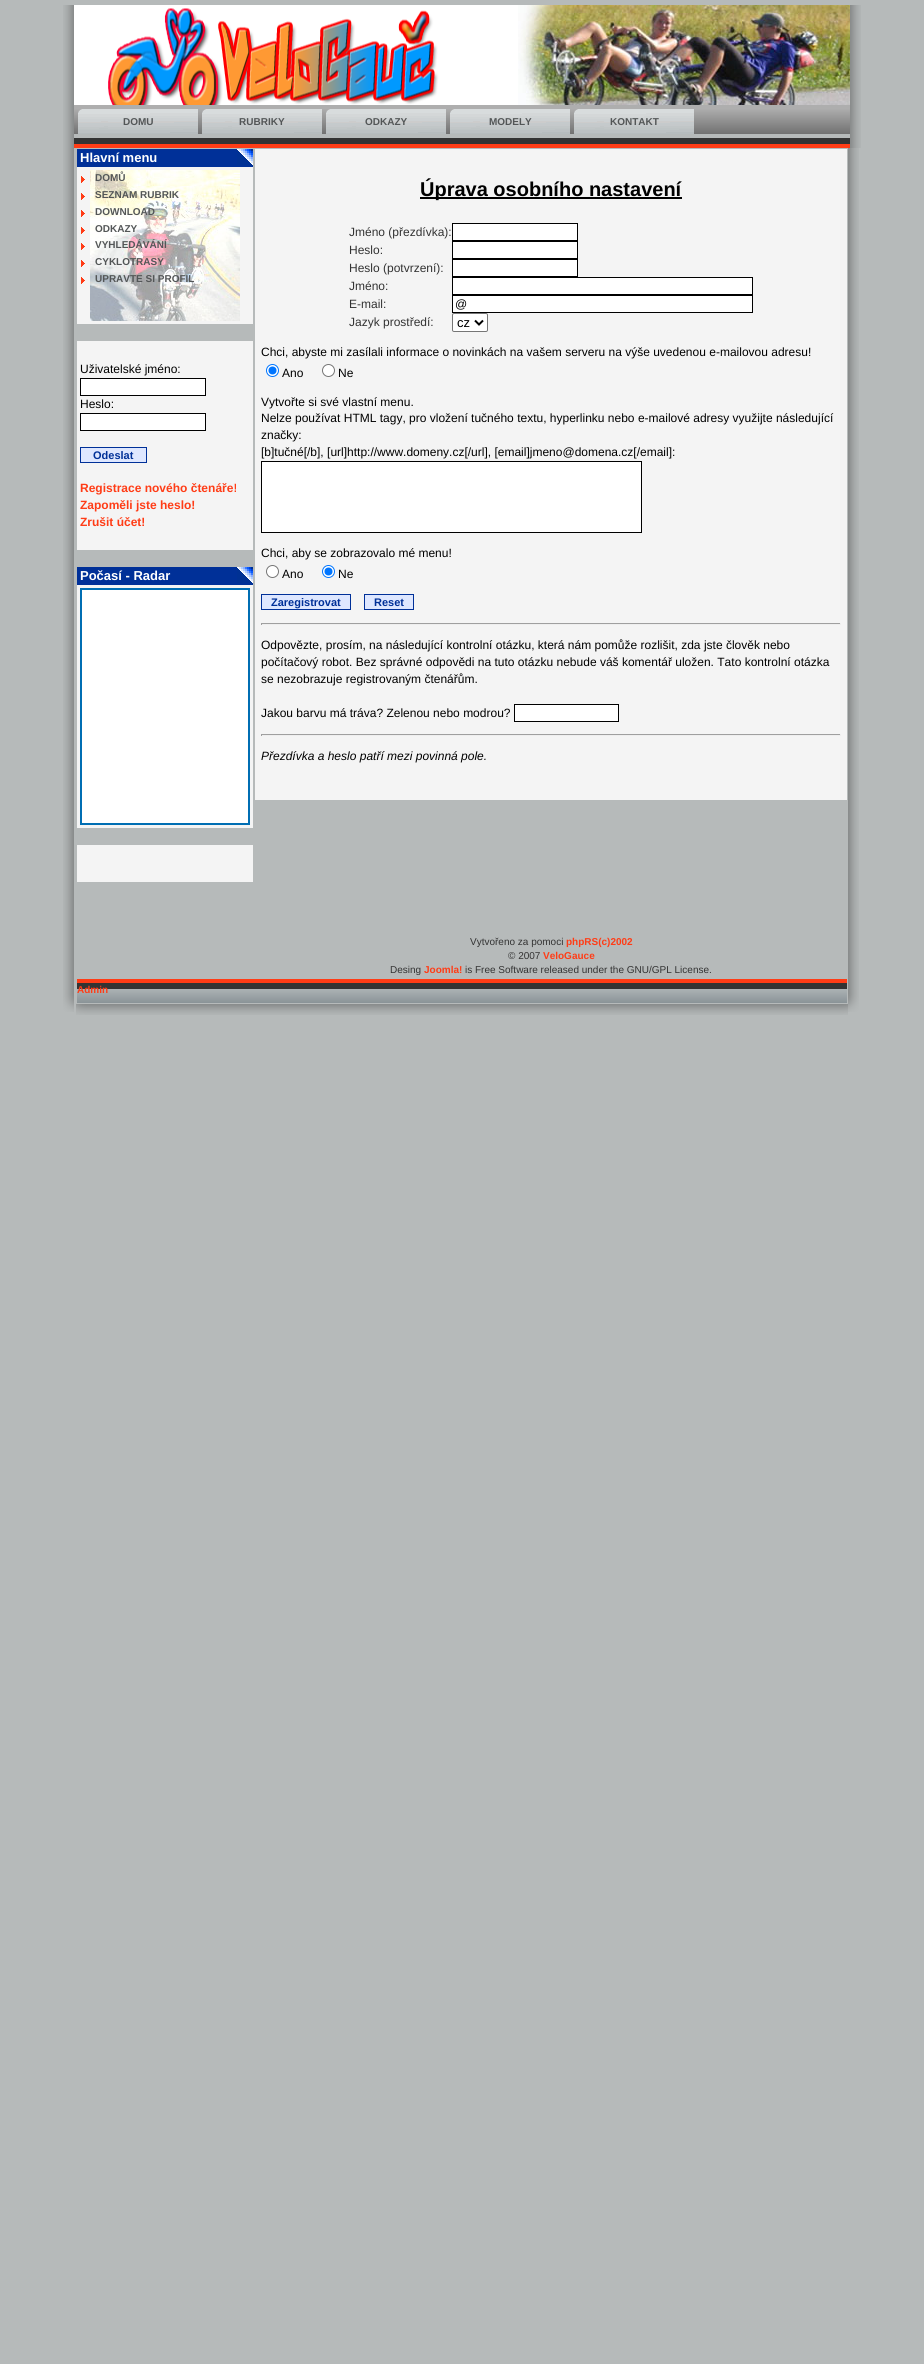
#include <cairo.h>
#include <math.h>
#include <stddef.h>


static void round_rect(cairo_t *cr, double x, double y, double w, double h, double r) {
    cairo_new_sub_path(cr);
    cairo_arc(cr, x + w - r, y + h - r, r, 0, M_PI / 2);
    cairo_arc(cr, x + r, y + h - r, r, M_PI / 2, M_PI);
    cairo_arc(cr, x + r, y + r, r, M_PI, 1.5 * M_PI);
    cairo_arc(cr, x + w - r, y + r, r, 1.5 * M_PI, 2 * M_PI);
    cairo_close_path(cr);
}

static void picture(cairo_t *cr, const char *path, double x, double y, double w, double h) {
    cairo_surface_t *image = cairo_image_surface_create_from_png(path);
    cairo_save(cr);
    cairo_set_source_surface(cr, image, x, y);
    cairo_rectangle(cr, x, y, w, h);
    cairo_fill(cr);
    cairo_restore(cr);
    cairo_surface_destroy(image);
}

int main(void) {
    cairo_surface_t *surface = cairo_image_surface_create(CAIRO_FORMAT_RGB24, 924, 2364);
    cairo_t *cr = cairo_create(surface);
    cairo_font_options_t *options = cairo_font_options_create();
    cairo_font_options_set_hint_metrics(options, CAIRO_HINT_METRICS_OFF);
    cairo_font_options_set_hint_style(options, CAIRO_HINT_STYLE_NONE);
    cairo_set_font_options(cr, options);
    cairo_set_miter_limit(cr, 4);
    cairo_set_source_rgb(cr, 0.714, 0.729, 0.729);
    cairo_paint(cr);
    picture(cr, "img1.png", 63, 5, 11, 133);
    cairo_set_source_rgb(cr, 1, 1, 1);
    cairo_rectangle(cr, 74, 5, 444, 100);
    cairo_fill(cr);
    picture(cr, "img2.png", 518, 5, 332, 100);
    picture(cr, "img3.png", 104, 8, 344, 97);
    picture(cr, "img4.png", 74, 105, 776, 29);
    picture(cr, "img5.png", 78, 109, 120, 25);
    cairo_select_font_face(cr, "Liberation Sans", CAIRO_FONT_SLANT_NORMAL, CAIRO_FONT_WEIGHT_BOLD);
    cairo_set_font_size(cr, 10);
    cairo_set_source_rgb(cr, 0.325, 0.337, 0.341);
    cairo_move_to(cr, 123, 125);
    cairo_show_text(cr, "DOMU");
    picture(cr, "img5.png", 202, 109, 120, 25);
    cairo_move_to(cr, 239, 125);
    cairo_show_text(cr, "RUBRIKY");
    picture(cr, "img5.png", 326, 109, 120, 25);
    cairo_move_to(cr, 365, 125);
    cairo_show_text(cr, "ODKAZY");
    picture(cr, "img5.png", 450, 109, 120, 25);
    cairo_move_to(cr, 489, 125);
    cairo_show_text(cr, "MODELY");
    picture(cr, "img5.png", 574, 109, 120, 25);
    cairo_move_to(cr, 610, 125);
    cairo_show_text(cr, "KONTAKT");
    picture(cr, "img6.png", 850, 5, 11, 133);
    picture(cr, "img7.png", 63, 138, 11, 10);
    picture(cr, "img8.png", 74, 138, 776, 10);
    picture(cr, "img9.png", 850, 138, 11, 10);
    picture(cr, "img10.png", 63, 148, 11, 752);
    cairo_set_source_rgb(cr, 0.957, 0.957, 0.957);
    cairo_rectangle(cr, 77, 167, 176, 157);
    cairo_fill(cr);
    cairo_set_source_rgb(cr, 0, 0.188, 0.596);
    cairo_rectangle(cr, 77, 149, 176, 18);
    cairo_fill(cr);
    picture(cr, "img11.png", 237, 149, 16, 16);
    cairo_set_font_size(cr, 13);
    cairo_set_source_rgb(cr, 1, 1, 1);
    cairo_move_to(cr, 80, 162);
    cairo_show_text(cr, "Hlavní menu");
    picture(cr, "img12.png", 90, 170, 150, 151);
    picture(cr, "img13.png", 81, 176, 4, 7);
    cairo_set_font_size(cr, 10);
    cairo_set_source_rgb(cr, 0.325, 0.337, 0.341);
    cairo_move_to(cr, 95, 181);
    cairo_show_text(cr, "DOMŮ");
    picture(cr, "img13.png", 81, 193, 4, 7);
    cairo_move_to(cr, 95, 198);
    cairo_show_text(cr, "SEZNAM RUBRIK");
    picture(cr, "img13.png", 81, 210, 4, 7);
    cairo_move_to(cr, 95, 215);
    cairo_show_text(cr, "DOWNLOAD");
    picture(cr, "img13.png", 81, 227, 4, 7);
    cairo_move_to(cr, 95, 232);
    cairo_show_text(cr, "ODKAZY");
    picture(cr, "img13.png", 81, 243, 4, 7);
    cairo_move_to(cr, 95, 248);
    cairo_show_text(cr, "VYHLEDÁVÁNÍ");
    picture(cr, "img13.png", 81, 260, 4, 7);
    cairo_move_to(cr, 95, 265);
    cairo_show_text(cr, "CYKLOTRASY");
    picture(cr, "img13.png", 81, 277, 4, 7);
    cairo_move_to(cr, 95, 282);
    cairo_show_text(cr, "UPRAVTE SI PROFIL");
    cairo_set_source_rgb(cr, 0.957, 0.957, 0.957);
    cairo_rectangle(cr, 77, 341, 176, 209);
    cairo_fill(cr);
    cairo_select_font_face(cr, "Liberation Sans", CAIRO_FONT_SLANT_NORMAL, CAIRO_FONT_WEIGHT_NORMAL);
    cairo_set_font_size(cr, 12);
    cairo_set_source_rgb(cr, 0, 0, 0);
    cairo_move_to(cr, 80, 373);
    cairo_show_text(cr, "Uživatelské jméno:");
    cairo_set_source_rgb(cr, 1, 1, 1);
    cairo_rectangle(cr, 80.5, 378.5, 125, 17);
    cairo_fill_preserve(cr);
    cairo_set_source_rgb(cr, 0, 0, 0);
    cairo_set_line_width(cr, 1);
    cairo_stroke(cr);
    cairo_move_to(cr, 80, 408);
    cairo_show_text(cr, "Heslo:");
    cairo_set_source_rgb(cr, 1, 1, 1);
    cairo_rectangle(cr, 80.5, 413.5, 125, 17);
    cairo_fill_preserve(cr);
    cairo_set_source_rgb(cr, 0, 0, 0);
    cairo_stroke(cr);
    cairo_set_source_rgb(cr, 0.871, 0.906, 1);
    cairo_rectangle(cr, 80.5, 447.5, 66, 15);
    cairo_fill_preserve(cr);
    cairo_set_source_rgb(cr, 0, 0.188, 0.596);
    cairo_stroke(cr);
    cairo_select_font_face(cr, "Liberation Sans", CAIRO_FONT_SLANT_NORMAL, CAIRO_FONT_WEIGHT_BOLD);
    cairo_set_font_size(cr, 11);
    cairo_move_to(cr, 93, 459);
    cairo_show_text(cr, "Odeslat");
    cairo_set_font_size(cr, 12);
    cairo_set_source_rgb(cr, 1, 0.235, 0.086);
    cairo_move_to(cr, 80, 492);
    cairo_show_text(cr, "Registrace nového čtenáře!");
    cairo_move_to(cr, 80, 509);
    cairo_show_text(cr, "Zapoměli jste heslo!");
    cairo_move_to(cr, 80, 526);
    cairo_show_text(cr, "Zrušit účet!");
    cairo_set_source_rgb(cr, 0.957, 0.957, 0.957);
    cairo_rectangle(cr, 77, 585, 176, 243);
    cairo_fill(cr);
    cairo_set_source_rgb(cr, 0, 0.188, 0.596);
    cairo_rectangle(cr, 77, 567, 176, 18);
    cairo_fill(cr);
    picture(cr, "img11.png", 237, 567, 16, 16);
    cairo_set_font_size(cr, 13);
    cairo_set_source_rgb(cr, 1, 1, 1);
    cairo_move_to(cr, 80, 580);
    cairo_show_text(cr, "Počasí - Radar");
    cairo_rectangle(cr, 81, 589, 168, 235);
    cairo_fill_preserve(cr);
    cairo_set_source_rgb(cr, 0, 0.431, 0.702);
    cairo_set_line_width(cr, 2);
    cairo_stroke(cr);
    cairo_set_source_rgb(cr, 0.957, 0.957, 0.957);
    cairo_rectangle(cr, 77, 845, 176, 37);
    cairo_fill(cr);
    cairo_rectangle(cr, 255, 149, 592, 651);
    cairo_fill(cr);
    cairo_set_source_rgb(cr, 0, 0, 0);
    cairo_rectangle(cr, 420, 197, 262, 2);
    cairo_fill(cr);
    cairo_set_font_size(cr, 20);
    cairo_move_to(cr, 420, 196);
    cairo_show_text(cr, "Úprava osobního nastavení");
    cairo_select_font_face(cr, "Liberation Sans", CAIRO_FONT_SLANT_NORMAL, CAIRO_FONT_WEIGHT_NORMAL);
    cairo_set_font_size(cr, 12);
    cairo_set_source_rgb(cr, 0.2, 0.2, 0.2);
    cairo_move_to(cr, 349, 236);
    cairo_show_text(cr, "Jméno (přezdívka):");
    cairo_set_source_rgb(cr, 1, 1, 1);
    cairo_rectangle(cr, 452.5, 223.5, 125, 17);
    cairo_fill_preserve(cr);
    cairo_set_source_rgb(cr, 0, 0, 0);
    cairo_set_line_width(cr, 1);
    cairo_stroke(cr);
    cairo_set_source_rgb(cr, 0.2, 0.2, 0.2);
    cairo_move_to(cr, 349, 254);
    cairo_show_text(cr, "Heslo:");
    cairo_set_source_rgb(cr, 1, 1, 1);
    cairo_rectangle(cr, 452.5, 241.5, 125, 17);
    cairo_fill_preserve(cr);
    cairo_set_source_rgb(cr, 0, 0, 0);
    cairo_stroke(cr);
    cairo_set_source_rgb(cr, 0.2, 0.2, 0.2);
    cairo_move_to(cr, 349, 272);
    cairo_show_text(cr, "Heslo (potvrzení):");
    cairo_set_source_rgb(cr, 1, 1, 1);
    cairo_rectangle(cr, 452.5, 259.5, 125, 17);
    cairo_fill_preserve(cr);
    cairo_set_source_rgb(cr, 0, 0, 0);
    cairo_stroke(cr);
    cairo_set_source_rgb(cr, 0.2, 0.2, 0.2);
    cairo_move_to(cr, 349, 290);
    cairo_show_text(cr, "Jméno:");
    cairo_set_source_rgb(cr, 1, 1, 1);
    cairo_rectangle(cr, 452.5, 277.5, 300, 17);
    cairo_fill_preserve(cr);
    cairo_set_source_rgb(cr, 0, 0, 0);
    cairo_stroke(cr);
    cairo_set_source_rgb(cr, 0.2, 0.2, 0.2);
    cairo_move_to(cr, 349, 308);
    cairo_show_text(cr, "E-mail:");
    cairo_set_source_rgb(cr, 1, 1, 1);
    cairo_rectangle(cr, 452.5, 295.5, 300, 17);
    cairo_fill_preserve(cr);
    cairo_set_source_rgb(cr, 0, 0, 0);
    cairo_stroke(cr);
    cairo_move_to(cr, 455, 308);
    cairo_show_text(cr, "@");
    cairo_set_source_rgb(cr, 0.2, 0.2, 0.2);
    cairo_move_to(cr, 349, 326);
    cairo_show_text(cr, "Jazyk prostředí:");
    cairo_set_source_rgb(cr, 1, 1, 1);
    round_rect(cr, 452.5, 313.5, 35, 18, 1.5);
    cairo_fill_preserve(cr);
    cairo_set_source_rgb(cr, 0.463, 0.463, 0.463);
    cairo_stroke(cr);
    cairo_new_path(cr);
    cairo_move_to(cr, 475, 320.5);
    cairo_line_to(cr, 479, 324.5);
    cairo_line_to(cr, 483, 320.5);
    cairo_set_source_rgb(cr, 0, 0, 0);
    cairo_set_line_width(cr, 2);
    cairo_stroke(cr);
    cairo_set_font_size(cr, 13);
    cairo_move_to(cr, 457, 327);
    cairo_show_text(cr, "cz");
    cairo_set_font_size(cr, 12);
    cairo_move_to(cr, 261, 356);
    cairo_show_text(cr, "Chci, abyste mi zasílali informace o novinkách na vašem serveru na výše uvedenou e-mailovou adresu!");
    cairo_set_source_rgb(cr, 1, 1, 1);
    cairo_new_path(cr);
    cairo_arc(cr, 272.5, 370.5, 6, 0, 2 * M_PI);
    cairo_fill_preserve(cr);
    cairo_set_source_rgb(cr, 0, 0.459, 1);
    cairo_set_line_width(cr, 1);
    cairo_stroke(cr);
    cairo_arc(cr, 272.5, 370.5, 4, 0, 2 * M_PI);
    cairo_fill(cr);
    cairo_set_source_rgb(cr, 0, 0, 0);
    cairo_move_to(cr, 282, 377);
    cairo_show_text(cr, "Ano");
    cairo_set_source_rgb(cr, 1, 1, 1);
    cairo_new_path(cr);
    cairo_arc(cr, 328.5, 370.5, 6, 0, 2 * M_PI);
    cairo_fill_preserve(cr);
    cairo_set_source_rgb(cr, 0.463, 0.463, 0.463);
    cairo_stroke(cr);
    cairo_set_source_rgb(cr, 0, 0, 0);
    cairo_move_to(cr, 338, 377);
    cairo_show_text(cr, "Ne");
    cairo_move_to(cr, 261, 406);
    cairo_show_text(cr, "Vytvořte si své vlastní menu.");
    cairo_move_to(cr, 261, 422);
    cairo_show_text(cr, "Nelze používat HTML tagy, pro vložení tučného textu, hyperlinku nebo e-mailové adresy využijte následující");
    cairo_move_to(cr, 261, 439);
    cairo_show_text(cr, "značky:");
    cairo_move_to(cr, 261, 456);
    cairo_show_text(cr, "[b]tučné[/b], [url]http://www.domeny.cz[/url], [email]jmeno@domena.cz[/email]:");
    cairo_set_source_rgb(cr, 1, 1, 1);
    cairo_rectangle(cr, 261.5, 461.5, 380, 71);
    cairo_fill_preserve(cr);
    cairo_set_source_rgb(cr, 0, 0, 0);
    cairo_stroke(cr);
    cairo_move_to(cr, 261, 557);
    cairo_show_text(cr, "Chci, aby se zobrazovalo mé menu!");
    cairo_set_source_rgb(cr, 1, 1, 1);
    cairo_new_path(cr);
    cairo_arc(cr, 272.5, 571.5, 6, 0, 2 * M_PI);
    cairo_fill_preserve(cr);
    cairo_set_source_rgb(cr, 0.463, 0.463, 0.463);
    cairo_stroke(cr);
    cairo_set_source_rgb(cr, 0, 0, 0);
    cairo_move_to(cr, 282, 578);
    cairo_show_text(cr, "Ano");
    cairo_set_source_rgb(cr, 1, 1, 1);
    cairo_new_path(cr);
    cairo_arc(cr, 328.5, 571.5, 6, 0, 2 * M_PI);
    cairo_fill_preserve(cr);
    cairo_set_source_rgb(cr, 0, 0.459, 1);
    cairo_stroke(cr);
    cairo_arc(cr, 328.5, 571.5, 4, 0, 2 * M_PI);
    cairo_fill(cr);
    cairo_set_source_rgb(cr, 0, 0, 0);
    cairo_move_to(cr, 338, 578);
    cairo_show_text(cr, "Ne");
    cairo_set_source_rgb(cr, 0.871, 0.906, 1);
    cairo_rectangle(cr, 261.5, 594.5, 89, 15);
    cairo_fill_preserve(cr);
    cairo_set_source_rgb(cr, 0, 0.188, 0.596);
    cairo_stroke(cr);
    cairo_select_font_face(cr, "Liberation Sans", CAIRO_FONT_SLANT_NORMAL, CAIRO_FONT_WEIGHT_BOLD);
    cairo_set_font_size(cr, 11);
    cairo_move_to(cr, 271, 606);
    cairo_show_text(cr, "Zaregistrovat");
    cairo_set_source_rgb(cr, 0.871, 0.906, 1);
    cairo_rectangle(cr, 364.5, 594.5, 49, 15);
    cairo_fill_preserve(cr);
    cairo_set_source_rgb(cr, 0, 0.188, 0.596);
    cairo_stroke(cr);
    cairo_move_to(cr, 374, 606);
    cairo_show_text(cr, "Reset");
    cairo_set_source_rgb(cr, 0.624, 0.624, 0.624);
    cairo_rectangle(cr, 261, 623, 580, 1);
    cairo_fill(cr);
    cairo_set_source_rgb(cr, 0.933, 0.933, 0.933);
    cairo_rectangle(cr, 840, 623, 1, 2);
    cairo_fill(cr);
    cairo_rectangle(cr, 261, 624, 580, 1);
    cairo_fill(cr);
    cairo_set_source_rgb(cr, 0.624, 0.624, 0.624);
    cairo_rectangle(cr, 261, 623, 1, 2);
    cairo_fill(cr);
    cairo_select_font_face(cr, "Liberation Sans", CAIRO_FONT_SLANT_NORMAL, CAIRO_FONT_WEIGHT_NORMAL);
    cairo_set_font_size(cr, 12);
    cairo_set_source_rgb(cr, 0, 0, 0);
    cairo_move_to(cr, 261, 649);
    cairo_show_text(cr, "Odpovězte, prosím, na následující kontrolní otázku, která nám pomůže rozlišit, zda jste člověk nebo");
    cairo_move_to(cr, 261, 666);
    cairo_show_text(cr, "počítačový robot. Bez správné odpovědi na tuto otázku nebude váš komentář uložen. Tato kontrolní otázka");
    cairo_move_to(cr, 261, 683);
    cairo_show_text(cr, "se nezobrazuje registrovaným čtenářům.");
    cairo_move_to(cr, 261, 717);
    cairo_show_text(cr, "Jakou barvu má tráva? Zelenou nebo modrou?");
    cairo_set_source_rgb(cr, 1, 1, 1);
    cairo_rectangle(cr, 514.5, 704.5, 104, 17);
    cairo_fill_preserve(cr);
    cairo_set_source_rgb(cr, 0, 0, 0);
    cairo_stroke(cr);
    cairo_set_source_rgb(cr, 0.624, 0.624, 0.624);
    cairo_rectangle(cr, 261, 734, 580, 1);
    cairo_fill(cr);
    cairo_set_source_rgb(cr, 0.933, 0.933, 0.933);
    cairo_rectangle(cr, 840, 734, 1, 2);
    cairo_fill(cr);
    cairo_rectangle(cr, 261, 735, 580, 1);
    cairo_fill(cr);
    cairo_set_source_rgb(cr, 0.624, 0.624, 0.624);
    cairo_rectangle(cr, 261, 734, 1, 2);
    cairo_fill(cr);
    cairo_select_font_face(cr, "Liberation Sans", CAIRO_FONT_SLANT_ITALIC, CAIRO_FONT_WEIGHT_NORMAL);
    cairo_set_source_rgb(cr, 0, 0, 0);
    cairo_move_to(cr, 261, 760);
    cairo_show_text(cr, "Přezdívka a heslo patří mezi povinná pole.");
    picture(cr, "img14.png", 848, 148, 11, 752);
    picture(cr, "img15.png", 63, 900, 11, 78);
    cairo_select_font_face(cr, "Liberation Sans", CAIRO_FONT_SLANT_NORMAL, CAIRO_FONT_WEIGHT_NORMAL);
    cairo_set_font_size(cr, 10);
    cairo_set_source_rgb(cr, 0.2, 0.2, 0.2);
    cairo_move_to(cr, 470, 945);
    cairo_show_text(cr, "Vytvořeno za pomoci");
    cairo_select_font_face(cr, "Liberation Sans", CAIRO_FONT_SLANT_NORMAL, CAIRO_FONT_WEIGHT_BOLD);
    cairo_set_source_rgb(cr, 1, 0.235, 0.086);
    cairo_move_to(cr, 566, 945);
    cairo_show_text(cr, "phpRS(c)2002");
    cairo_select_font_face(cr, "Liberation Sans", CAIRO_FONT_SLANT_NORMAL, CAIRO_FONT_WEIGHT_NORMAL);
    cairo_set_source_rgb(cr, 0.2, 0.2, 0.2);
    cairo_move_to(cr, 508, 959);
    cairo_show_text(cr, "© 2007");
    cairo_select_font_face(cr, "Liberation Sans", CAIRO_FONT_SLANT_NORMAL, CAIRO_FONT_WEIGHT_BOLD);
    cairo_set_source_rgb(cr, 1, 0.235, 0.086);
    cairo_move_to(cr, 543, 959);
    cairo_show_text(cr, "VeloGauce");
    cairo_select_font_face(cr, "Liberation Sans", CAIRO_FONT_SLANT_NORMAL, CAIRO_FONT_WEIGHT_NORMAL);
    cairo_set_source_rgb(cr, 0.2, 0.2, 0.2);
    cairo_move_to(cr, 390, 973);
    cairo_show_text(cr, "Desing");
    cairo_select_font_face(cr, "Liberation Sans", CAIRO_FONT_SLANT_NORMAL, CAIRO_FONT_WEIGHT_BOLD);
    cairo_set_source_rgb(cr, 1, 0.235, 0.086);
    cairo_move_to(cr, 424, 973);
    cairo_show_text(cr, "Joomla!");
    cairo_select_font_face(cr, "Liberation Sans", CAIRO_FONT_SLANT_NORMAL, CAIRO_FONT_WEIGHT_NORMAL);
    cairo_set_source_rgb(cr, 0.2, 0.2, 0.2);
    cairo_move_to(cr, 465, 973);
    cairo_show_text(cr, "is Free Software released under the GNU/GPL License.");
    picture(cr, "img16.png", 848, 900, 11, 78);
    picture(cr, "img17.png", 63, 978, 11, 34);
    picture(cr, "img18.png", 76, 1004, 772, 11);
    picture(cr, "img19.png", 77, 979, 770, 24);
    cairo_select_font_face(cr, "Liberation Sans", CAIRO_FONT_SLANT_NORMAL, CAIRO_FONT_WEIGHT_BOLD);
    cairo_set_source_rgb(cr, 1, 0.235, 0.086);
    cairo_move_to(cr, 77, 993);
    cairo_show_text(cr, "Admin");
    picture(cr, "img20.png", 848, 978, 11, 34);
    cairo_surface_write_to_png(surface, "page.png");
    cairo_font_options_destroy(options);
    cairo_destroy(cr);
    cairo_surface_destroy(surface);
    return 0;
}
